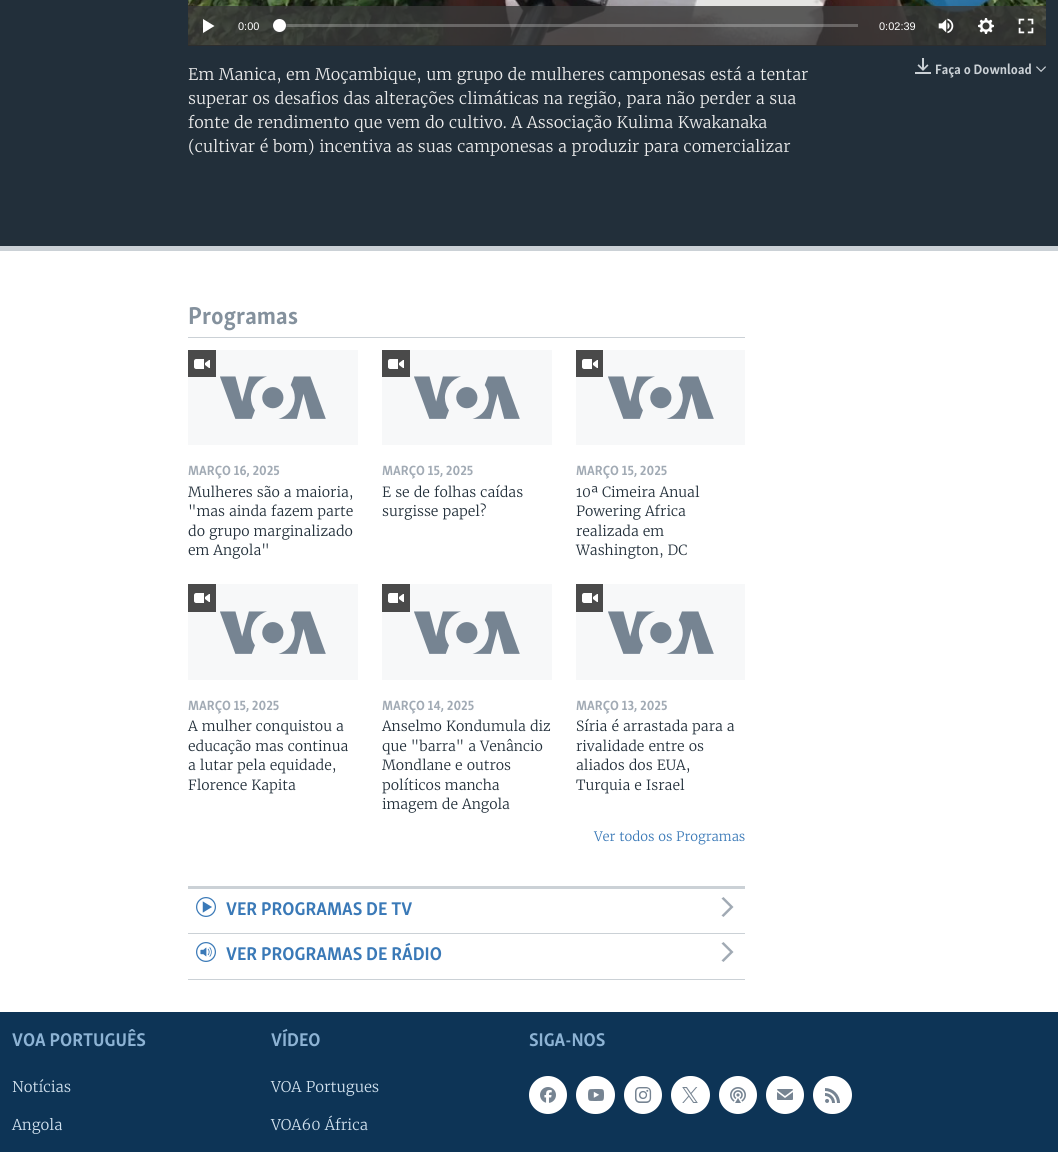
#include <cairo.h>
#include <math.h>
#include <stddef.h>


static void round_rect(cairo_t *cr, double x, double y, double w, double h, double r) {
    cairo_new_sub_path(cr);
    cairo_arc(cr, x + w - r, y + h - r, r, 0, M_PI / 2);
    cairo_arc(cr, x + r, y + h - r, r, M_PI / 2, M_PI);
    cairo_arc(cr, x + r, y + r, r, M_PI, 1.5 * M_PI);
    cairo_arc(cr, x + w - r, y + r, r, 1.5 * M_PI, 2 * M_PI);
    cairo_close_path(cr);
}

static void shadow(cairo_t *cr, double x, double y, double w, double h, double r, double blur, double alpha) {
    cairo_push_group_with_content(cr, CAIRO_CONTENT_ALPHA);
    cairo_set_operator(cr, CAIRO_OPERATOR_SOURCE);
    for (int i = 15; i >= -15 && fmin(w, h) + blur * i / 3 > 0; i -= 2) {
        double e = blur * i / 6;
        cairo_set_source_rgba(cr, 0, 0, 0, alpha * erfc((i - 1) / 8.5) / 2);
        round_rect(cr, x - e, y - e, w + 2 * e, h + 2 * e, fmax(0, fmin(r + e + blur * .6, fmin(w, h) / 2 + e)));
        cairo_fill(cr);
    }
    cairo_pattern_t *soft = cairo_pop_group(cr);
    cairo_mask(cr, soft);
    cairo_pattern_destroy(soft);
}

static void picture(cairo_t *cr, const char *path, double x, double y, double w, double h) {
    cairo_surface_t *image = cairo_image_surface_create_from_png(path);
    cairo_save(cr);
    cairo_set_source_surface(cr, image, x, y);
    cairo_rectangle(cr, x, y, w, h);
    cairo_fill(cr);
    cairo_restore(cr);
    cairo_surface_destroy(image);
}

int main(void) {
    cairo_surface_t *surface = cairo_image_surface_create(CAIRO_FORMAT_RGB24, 1058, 1152);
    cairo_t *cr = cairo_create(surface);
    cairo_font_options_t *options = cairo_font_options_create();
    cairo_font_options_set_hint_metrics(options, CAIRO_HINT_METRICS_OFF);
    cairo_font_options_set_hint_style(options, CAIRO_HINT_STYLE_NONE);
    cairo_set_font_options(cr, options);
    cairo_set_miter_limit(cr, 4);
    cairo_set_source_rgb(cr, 1, 1, 1);
    cairo_paint(cr);
    cairo_set_source_rgb(cr, 0.133, 0.184, 0.227);
    cairo_rectangle(cr, 0, 0, 1058, 246);
    cairo_fill(cr);
    cairo_set_source_rgb(cr, 0.796, 0.82, 0.839);
    cairo_rectangle(cr, 0, 246, 1058, 5);
    cairo_fill(cr);
    cairo_set_source_rgb(cr, 0, 0, 0);
    cairo_rectangle(cr, 188, 45, 858, 1);
    cairo_fill(cr);
    picture(cr, "img1.png", 188, 0, 858, 45);
    cairo_set_source_rgba(cr, 0.22, 0.22, 0.22, 0.8);
    cairo_rectangle(cr, 188, 6, 858, 40);
    cairo_fill(cr);
    cairo_set_source_rgb(cr, 1, 1, 1);
    cairo_new_path(cr);
    cairo_move_to(cr, 203, 33);
    cairo_line_to(cr, 214.5, 26);
    cairo_line_to(cr, 203, 19);
    cairo_close_path(cr);
    cairo_fill(cr);
    cairo_select_font_face(cr, "Liberation Sans", CAIRO_FONT_SLANT_NORMAL, CAIRO_FONT_WEIGHT_NORMAL);
    cairo_set_font_size(cr, 11);
    cairo_move_to(cr, 238, 30);
    cairo_show_text(cr, "0:00");
    cairo_set_source_rgba(cr, 1, 1, 1, 0.25);
    cairo_rectangle(cr, 279, 24, 579, 3);
    cairo_fill(cr);
    cairo_set_source_rgb(cr, 0.255, 0.255, 0.267);
    shadow(cr, 273, 19, 13, 13, 6.5, 1.5, 1);
    cairo_set_source_rgb(cr, 1, 1, 1);
    cairo_arc(cr, 279.5, 25.5, 6.5, 0, 2 * M_PI);
    cairo_fill(cr);
    cairo_move_to(cr, 879, 30);
    cairo_show_text(cr, "0:02:39");
    picture(cr, "img2.png", 938, 18, 16, 16);
    picture(cr, "img3.png", 978, 18, 16, 16);
    picture(cr, "img4.png", 1018, 18, 16, 16);
    cairo_select_font_face(cr, "Merriweather Light", CAIRO_FONT_SLANT_NORMAL, CAIRO_FONT_WEIGHT_NORMAL);
    cairo_set_font_size(cr, 16);
    cairo_set_source_rgb(cr, 0.922, 0.922, 0.922);
    cairo_move_to(cr, 188, 80);
    cairo_show_text(cr, "Em Manica, em Moçambique, um grupo de mulheres camponesas está a tentar");
    cairo_move_to(cr, 188, 104);
    cairo_show_text(cr, "superar os desafios das alterações climáticas na região, para não perder a sua");
    cairo_move_to(cr, 188, 128);
    cairo_show_text(cr, "fonte de rendimento que vem do cultivo. A Associação Kulima Kwakanaka");
    cairo_move_to(cr, 188, 152);
    cairo_show_text(cr, "(cultivar é bom) incentiva as suas camponesas a produzir para comercializar");
    picture(cr, "img5.png", 915, 58, 16, 16);
    cairo_select_font_face(cr, "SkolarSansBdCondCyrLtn", CAIRO_FONT_SLANT_NORMAL, CAIRO_FONT_WEIGHT_BOLD);
    cairo_set_font_size(cr, 14);
    cairo_set_source_rgb(cr, 0.796, 0.82, 0.839);
    cairo_move_to(cr, 935, 74);
    cairo_show_text(cr, "Faça o Download");
    picture(cr, "img6.png", 1036, 66, 10, 6);
    cairo_rectangle(cr, 188, 337, 557, 1);
    cairo_fill(cr);
    cairo_set_font_size(cr, 25);
    cairo_set_source_rgb(cr, 0.518, 0.569, 0.616);
    cairo_move_to(cr, 188, 324);
    cairo_show_text(cr, "Programas");
    cairo_set_source_rgb(cr, 0.965, 0.969, 0.973);
    cairo_rectangle(cr, 188, 350, 170, 95);
    cairo_fill(cr);
    picture(cr, "img7.png", 220, 376, 106, 43);
    cairo_set_source_rgb(cr, 0.29, 0.29, 0.29);
    cairo_rectangle(cr, 188, 350, 28, 27);
    cairo_fill(cr);
    picture(cr, "img8.png", 194, 359, 16, 10);
    cairo_set_font_size(cr, 13.75);
    cairo_set_source_rgb(cr, 0.631, 0.667, 0.706);
    cairo_move_to(cr, 188, 475);
    cairo_show_text(cr, "MARÇO 16, 2025");
    cairo_select_font_face(cr, "Merriweather Light", CAIRO_FONT_SLANT_NORMAL, CAIRO_FONT_WEIGHT_NORMAL);
    cairo_set_font_size(cr, 14);
    cairo_set_source_rgb(cr, 0.133, 0.184, 0.227);
    cairo_move_to(cr, 188, 497);
    cairo_show_text(cr, "Mulheres são a maioria,");
    cairo_move_to(cr, 188, 516);
    cairo_show_text(cr, "\"mas ainda fazem parte");
    cairo_move_to(cr, 188, 536);
    cairo_show_text(cr, "do grupo marginalizado");
    cairo_move_to(cr, 188, 555);
    cairo_show_text(cr, "em Angola\"");
    cairo_set_source_rgb(cr, 0.965, 0.969, 0.973);
    cairo_rectangle(cr, 382, 350, 170, 95);
    cairo_fill(cr);
    picture(cr, "img7.png", 414, 376, 106, 43);
    cairo_set_source_rgb(cr, 0.29, 0.29, 0.29);
    cairo_rectangle(cr, 382, 350, 28, 27);
    cairo_fill(cr);
    picture(cr, "img8.png", 388, 359, 16, 10);
    cairo_select_font_face(cr, "SkolarSansBdCondCyrLtn", CAIRO_FONT_SLANT_NORMAL, CAIRO_FONT_WEIGHT_BOLD);
    cairo_set_font_size(cr, 13.75);
    cairo_set_source_rgb(cr, 0.631, 0.667, 0.706);
    cairo_move_to(cr, 382, 475);
    cairo_show_text(cr, "MARÇO 15, 2025");
    cairo_select_font_face(cr, "Merriweather Light", CAIRO_FONT_SLANT_NORMAL, CAIRO_FONT_WEIGHT_NORMAL);
    cairo_set_font_size(cr, 14);
    cairo_set_source_rgb(cr, 0.133, 0.184, 0.227);
    cairo_move_to(cr, 382, 497);
    cairo_show_text(cr, "E se de folhas caídas");
    cairo_move_to(cr, 382, 516);
    cairo_show_text(cr, "surgisse papel?");
    cairo_set_source_rgb(cr, 0.965, 0.969, 0.973);
    cairo_rectangle(cr, 576, 350, 169, 95);
    cairo_fill(cr);
    picture(cr, "img7.png", 608, 376, 106, 43);
    cairo_set_source_rgb(cr, 0.29, 0.29, 0.29);
    cairo_rectangle(cr, 576, 350, 27, 27);
    cairo_fill(cr);
    picture(cr, "img8.png", 582, 359, 16, 10);
    cairo_select_font_face(cr, "SkolarSansBdCondCyrLtn", CAIRO_FONT_SLANT_NORMAL, CAIRO_FONT_WEIGHT_BOLD);
    cairo_set_font_size(cr, 13.75);
    cairo_set_source_rgb(cr, 0.631, 0.667, 0.706);
    cairo_move_to(cr, 576, 475);
    cairo_show_text(cr, "MARÇO 15, 2025");
    cairo_select_font_face(cr, "Merriweather Light", CAIRO_FONT_SLANT_NORMAL, CAIRO_FONT_WEIGHT_NORMAL);
    cairo_set_font_size(cr, 14);
    cairo_set_source_rgb(cr, 0.133, 0.184, 0.227);
    cairo_move_to(cr, 576, 497);
    cairo_show_text(cr, "10ª Cimeira Anual");
    cairo_move_to(cr, 576, 516);
    cairo_show_text(cr, "Powering Africa");
    cairo_move_to(cr, 576, 536);
    cairo_show_text(cr, "realizada em");
    cairo_move_to(cr, 576, 555);
    cairo_show_text(cr, "Washington, DC");
    cairo_set_source_rgb(cr, 0.965, 0.969, 0.973);
    cairo_rectangle(cr, 188, 584, 170, 96);
    cairo_fill(cr);
    picture(cr, "img7.png", 220, 611, 106, 43);
    cairo_set_source_rgb(cr, 0.29, 0.29, 0.29);
    cairo_rectangle(cr, 188, 584, 28, 28);
    cairo_fill(cr);
    picture(cr, "img8.png", 194, 593, 16, 10);
    cairo_select_font_face(cr, "SkolarSansBdCondCyrLtn", CAIRO_FONT_SLANT_NORMAL, CAIRO_FONT_WEIGHT_BOLD);
    cairo_set_font_size(cr, 13.75);
    cairo_set_source_rgb(cr, 0.631, 0.667, 0.706);
    cairo_move_to(cr, 188, 710);
    cairo_show_text(cr, "MARÇO 15, 2025");
    cairo_select_font_face(cr, "Merriweather Light", CAIRO_FONT_SLANT_NORMAL, CAIRO_FONT_WEIGHT_NORMAL);
    cairo_set_font_size(cr, 14);
    cairo_set_source_rgb(cr, 0.133, 0.184, 0.227);
    cairo_move_to(cr, 188, 731);
    cairo_show_text(cr, "A mulher conquistou a");
    cairo_move_to(cr, 188, 751);
    cairo_show_text(cr, "educação mas continua");
    cairo_move_to(cr, 188, 770);
    cairo_show_text(cr, "a lutar pela equidade,");
    cairo_move_to(cr, 188, 790);
    cairo_show_text(cr, "Florence Kapita");
    cairo_set_source_rgb(cr, 0.965, 0.969, 0.973);
    cairo_rectangle(cr, 382, 584, 170, 96);
    cairo_fill(cr);
    picture(cr, "img7.png", 414, 611, 106, 43);
    cairo_set_source_rgb(cr, 0.29, 0.29, 0.29);
    cairo_rectangle(cr, 382, 584, 28, 28);
    cairo_fill(cr);
    picture(cr, "img8.png", 388, 593, 16, 10);
    cairo_select_font_face(cr, "SkolarSansBdCondCyrLtn", CAIRO_FONT_SLANT_NORMAL, CAIRO_FONT_WEIGHT_BOLD);
    cairo_set_font_size(cr, 13.75);
    cairo_set_source_rgb(cr, 0.631, 0.667, 0.706);
    cairo_move_to(cr, 382, 710);
    cairo_show_text(cr, "MARÇO 14, 2025");
    cairo_select_font_face(cr, "Merriweather Light", CAIRO_FONT_SLANT_NORMAL, CAIRO_FONT_WEIGHT_NORMAL);
    cairo_set_font_size(cr, 14);
    cairo_set_source_rgb(cr, 0.133, 0.184, 0.227);
    cairo_move_to(cr, 382, 731);
    cairo_show_text(cr, "Anselmo Kondumula diz");
    cairo_move_to(cr, 382, 751);
    cairo_show_text(cr, "que \"barra\" a Venâncio");
    cairo_move_to(cr, 382, 770);
    cairo_show_text(cr, "Mondlane e outros");
    cairo_move_to(cr, 382, 790);
    cairo_show_text(cr, "políticos mancha");
    cairo_move_to(cr, 382, 809);
    cairo_show_text(cr, "imagem de Angola");
    cairo_set_source_rgb(cr, 0.965, 0.969, 0.973);
    cairo_rectangle(cr, 576, 584, 169, 96);
    cairo_fill(cr);
    picture(cr, "img7.png", 608, 611, 106, 43);
    cairo_set_source_rgb(cr, 0.29, 0.29, 0.29);
    cairo_rectangle(cr, 576, 584, 27, 28);
    cairo_fill(cr);
    picture(cr, "img8.png", 582, 593, 16, 10);
    cairo_select_font_face(cr, "SkolarSansBdCondCyrLtn", CAIRO_FONT_SLANT_NORMAL, CAIRO_FONT_WEIGHT_BOLD);
    cairo_set_font_size(cr, 13.75);
    cairo_set_source_rgb(cr, 0.631, 0.667, 0.706);
    cairo_move_to(cr, 576, 710);
    cairo_show_text(cr, "MARÇO 13, 2025");
    cairo_select_font_face(cr, "Merriweather Light", CAIRO_FONT_SLANT_NORMAL, CAIRO_FONT_WEIGHT_NORMAL);
    cairo_set_font_size(cr, 14);
    cairo_set_source_rgb(cr, 0.133, 0.184, 0.227);
    cairo_move_to(cr, 576, 731);
    cairo_show_text(cr, "Síria é arrastada para a");
    cairo_move_to(cr, 576, 751);
    cairo_show_text(cr, "rivalidade entre os");
    cairo_move_to(cr, 576, 770);
    cairo_show_text(cr, "aliados dos EUA,");
    cairo_move_to(cr, 576, 790);
    cairo_show_text(cr, "Turquia e Israel");
    cairo_set_font_size(cr, 13);
    cairo_set_source_rgb(cr, 0.227, 0.475, 0.718);
    cairo_move_to(cr, 594, 841);
    cairo_show_text(cr, "Ver todos os Programas");
    cairo_set_source_rgb(cr, 0.796, 0.82, 0.839);
    cairo_rectangle(cr, 188, 886, 557, 3);
    cairo_fill(cr);
    cairo_rectangle(cr, 188, 933, 557, 1);
    cairo_fill(cr);
    picture(cr, "img9.png", 196, 897, 20, 20);
    cairo_select_font_face(cr, "SkolarSansBdCondCyrLtn", CAIRO_FONT_SLANT_NORMAL, CAIRO_FONT_WEIGHT_BOLD);
    cairo_set_font_size(cr, 18.9);
    cairo_set_source_rgb(cr, 0.227, 0.475, 0.718);
    cairo_move_to(cr, 226, 915);
    cairo_show_text(cr, "VER PROGRAMAS DE TV");
    cairo_set_source_rgb(cr, 0.631, 0.667, 0.706);
    cairo_new_path(cr);
    cairo_move_to(cr, 723.5, 917);
    cairo_line_to(cr, 733.5, 907);
    cairo_line_to(cr, 723.5, 897);
    cairo_line_to(cr, 721.5, 898.5);
    cairo_line_to(cr, 730, 907);
    cairo_line_to(cr, 721.5, 915.5);
    cairo_close_path(cr);
    cairo_fill(cr);
    cairo_set_source_rgb(cr, 0.796, 0.82, 0.839);
    cairo_rectangle(cr, 188, 979, 557, 1);
    cairo_fill(cr);
    picture(cr, "img10.png", 196, 942, 20, 20);
    cairo_set_source_rgb(cr, 0.227, 0.475, 0.718);
    cairo_move_to(cr, 226, 960);
    cairo_show_text(cr, "VER PROGRAMAS DE RÁDIO");
    cairo_set_source_rgb(cr, 0.631, 0.667, 0.706);
    cairo_new_path(cr);
    cairo_move_to(cr, 723.5, 962);
    cairo_line_to(cr, 733.5, 952);
    cairo_line_to(cr, 723.5, 942);
    cairo_line_to(cr, 721.5, 943.5);
    cairo_line_to(cr, 730, 952);
    cairo_line_to(cr, 721.5, 960.5);
    cairo_close_path(cr);
    cairo_fill(cr);
    cairo_set_source_rgb(cr, 0.051, 0.204, 0.337);
    cairo_rectangle(cr, 0, 1012, 1058, 140);
    cairo_fill(cr);
    cairo_set_source_rgb(cr, 0.553, 0.702, 0.831);
    cairo_move_to(cr, 12, 1046);
    cairo_show_text(cr, "VOA PORTUGUÊS");
    cairo_select_font_face(cr, "Merriweather Light", CAIRO_FONT_SLANT_NORMAL, CAIRO_FONT_WEIGHT_NORMAL);
    cairo_set_font_size(cr, 14.75);
    cairo_set_source_rgb(cr, 0.82, 0.882, 0.933);
    cairo_move_to(cr, 12, 1092);
    cairo_show_text(cr, "Notícias");
    cairo_move_to(cr, 12, 1130);
    cairo_show_text(cr, "Angola");
    cairo_select_font_face(cr, "SkolarSansBdCondCyrLtn", CAIRO_FONT_SLANT_NORMAL, CAIRO_FONT_WEIGHT_BOLD);
    cairo_set_font_size(cr, 18.9);
    cairo_set_source_rgb(cr, 0.553, 0.702, 0.831);
    cairo_move_to(cr, 271, 1046);
    cairo_show_text(cr, "VÍDEO");
    cairo_select_font_face(cr, "Merriweather Light", CAIRO_FONT_SLANT_NORMAL, CAIRO_FONT_WEIGHT_NORMAL);
    cairo_set_font_size(cr, 14.75);
    cairo_set_source_rgb(cr, 0.82, 0.882, 0.933);
    cairo_move_to(cr, 271, 1092);
    cairo_show_text(cr, "VOA Portugues");
    cairo_move_to(cr, 271, 1130);
    cairo_show_text(cr, "VOA60 África");
    cairo_select_font_face(cr, "SkolarSansBdCondCyrLtn", CAIRO_FONT_SLANT_NORMAL, CAIRO_FONT_WEIGHT_BOLD);
    cairo_set_font_size(cr, 18.9);
    cairo_set_source_rgb(cr, 0.553, 0.702, 0.831);
    cairo_move_to(cr, 529, 1046);
    cairo_show_text(cr, "SIGA-NOS");
    cairo_set_source_rgb(cr, 1, 1, 1);
    cairo_new_path(cr);
    cairo_arc(cr, 548, 1095, 19, 0, 2 * M_PI);
    cairo_fill(cr);
    picture(cr, "img11.png", 540, 1087, 16, 16);
    round_rect(cr, 576, 1076, 39, 38, 19);
    cairo_fill(cr);
    picture(cr, "img12.png", 588, 1089, 16, 12);
    cairo_arc(cr, 643, 1095, 19, 0, 2 * M_PI);
    cairo_fill(cr);
    picture(cr, "img13.png", 635, 1087, 17, 16);
    round_rect(cr, 671, 1076, 39, 38, 19);
    cairo_fill(cr);
    picture(cr, "img14.png", 682, 1087, 16, 16);
    cairo_arc(cr, 738, 1095, 19, 0, 2 * M_PI);
    cairo_fill(cr);
    picture(cr, "img15.png", 730, 1087, 16, 16);
    cairo_arc(cr, 785, 1095, 19, 0, 2 * M_PI);
    cairo_fill(cr);
    picture(cr, "img16.png", 777, 1089, 16, 11);
    round_rect(cr, 813, 1076, 39, 38, 19);
    cairo_fill(cr);
    picture(cr, "img17.png", 825, 1088, 15, 15);
    cairo_surface_write_to_png(surface, "page.png");
    cairo_font_options_destroy(options);
    cairo_destroy(cr);
    cairo_surface_destroy(surface);
    return 0;
}
